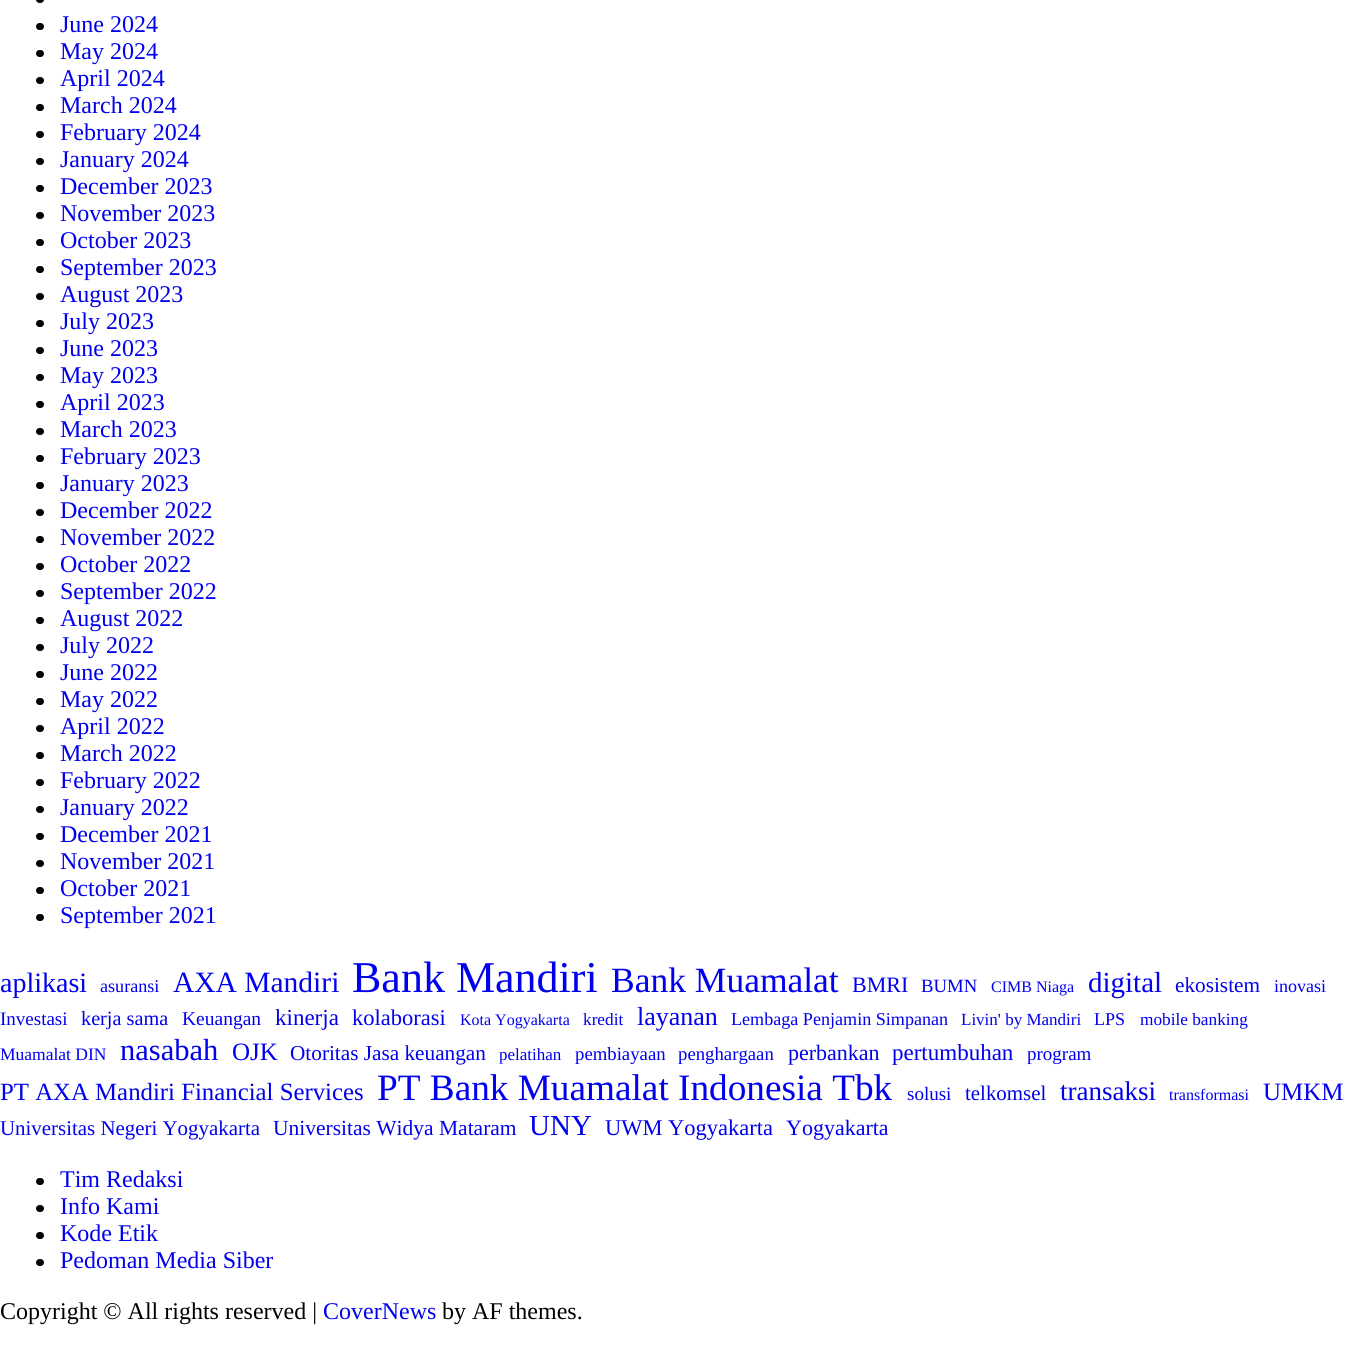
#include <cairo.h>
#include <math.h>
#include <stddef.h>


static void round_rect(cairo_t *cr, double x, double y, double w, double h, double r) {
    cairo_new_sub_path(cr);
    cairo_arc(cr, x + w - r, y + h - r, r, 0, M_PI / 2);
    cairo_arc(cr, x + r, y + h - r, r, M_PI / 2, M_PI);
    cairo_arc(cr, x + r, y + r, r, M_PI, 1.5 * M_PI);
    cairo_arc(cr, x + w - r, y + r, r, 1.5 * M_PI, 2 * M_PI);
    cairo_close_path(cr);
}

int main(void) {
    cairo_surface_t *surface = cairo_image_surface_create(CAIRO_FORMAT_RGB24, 1368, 1352);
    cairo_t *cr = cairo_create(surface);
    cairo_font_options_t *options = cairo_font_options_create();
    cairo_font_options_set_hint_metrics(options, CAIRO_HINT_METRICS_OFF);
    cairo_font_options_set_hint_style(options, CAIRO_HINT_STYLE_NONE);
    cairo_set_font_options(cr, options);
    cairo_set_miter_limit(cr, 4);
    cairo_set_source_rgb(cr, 1, 1, 1);
    cairo_paint(cr);
    cairo_set_source_rgb(cr, 0, 0, 0);
    round_rect(cr, 36, -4, 8, 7, 3.5);
    cairo_fill(cr);
    round_rect(cr, 36, 23, 8, 7, 3.5);
    cairo_fill(cr);
    cairo_select_font_face(cr, "Liberation Serif", CAIRO_FONT_SLANT_NORMAL, CAIRO_FONT_WEIGHT_NORMAL);
    cairo_set_font_size(cr, 24);
    cairo_set_source_rgb(cr, 0, 0, 0.933);
    cairo_move_to(cr, 60, 32);
    cairo_show_text(cr, "June 2024");
    cairo_set_source_rgb(cr, 0, 0, 0);
    round_rect(cr, 36, 50, 8, 7, 3.5);
    cairo_fill(cr);
    cairo_set_source_rgb(cr, 0, 0, 0.933);
    cairo_move_to(cr, 60, 59);
    cairo_show_text(cr, "May 2024");
    cairo_set_source_rgb(cr, 0, 0, 0);
    round_rect(cr, 36, 77, 8, 7, 3.5);
    cairo_fill(cr);
    cairo_set_source_rgb(cr, 0, 0, 0.933);
    cairo_move_to(cr, 60, 86);
    cairo_show_text(cr, "April 2024");
    cairo_set_source_rgb(cr, 0, 0, 0);
    round_rect(cr, 36, 104, 8, 7, 3.5);
    cairo_fill(cr);
    cairo_set_source_rgb(cr, 0, 0, 0.933);
    cairo_move_to(cr, 60, 113);
    cairo_show_text(cr, "March 2024");
    cairo_set_source_rgb(cr, 0, 0, 0);
    round_rect(cr, 36, 131, 8, 7, 3.5);
    cairo_fill(cr);
    cairo_set_source_rgb(cr, 0, 0, 0.933);
    cairo_move_to(cr, 60, 140);
    cairo_show_text(cr, "February 2024");
    cairo_set_source_rgb(cr, 0, 0, 0);
    round_rect(cr, 36, 158, 8, 7, 3.5);
    cairo_fill(cr);
    cairo_set_source_rgb(cr, 0, 0, 0.933);
    cairo_move_to(cr, 60, 167);
    cairo_show_text(cr, "January 2024");
    cairo_set_source_rgb(cr, 0, 0, 0);
    round_rect(cr, 36, 185, 8, 7, 3.5);
    cairo_fill(cr);
    cairo_set_source_rgb(cr, 0, 0, 0.933);
    cairo_move_to(cr, 60, 194);
    cairo_show_text(cr, "December 2023");
    cairo_set_source_rgb(cr, 0, 0, 0);
    round_rect(cr, 36, 212, 8, 7, 3.5);
    cairo_fill(cr);
    cairo_set_source_rgb(cr, 0, 0, 0.933);
    cairo_move_to(cr, 60, 221);
    cairo_show_text(cr, "November 2023");
    cairo_set_source_rgb(cr, 0, 0, 0);
    round_rect(cr, 36, 239, 8, 7, 3.5);
    cairo_fill(cr);
    cairo_set_source_rgb(cr, 0, 0, 0.933);
    cairo_move_to(cr, 60, 248);
    cairo_show_text(cr, "October 2023");
    cairo_set_source_rgb(cr, 0, 0, 0);
    round_rect(cr, 36, 266, 8, 7, 3.5);
    cairo_fill(cr);
    cairo_set_source_rgb(cr, 0, 0, 0.933);
    cairo_move_to(cr, 60, 275);
    cairo_show_text(cr, "September 2023");
    cairo_set_source_rgb(cr, 0, 0, 0);
    round_rect(cr, 36, 293, 8, 7, 3.5);
    cairo_fill(cr);
    cairo_set_source_rgb(cr, 0, 0, 0.933);
    cairo_move_to(cr, 60, 302);
    cairo_show_text(cr, "August 2023");
    cairo_set_source_rgb(cr, 0, 0, 0);
    round_rect(cr, 36, 320, 8, 7, 3.5);
    cairo_fill(cr);
    cairo_set_source_rgb(cr, 0, 0, 0.933);
    cairo_move_to(cr, 60, 329);
    cairo_show_text(cr, "July 2023");
    cairo_set_source_rgb(cr, 0, 0, 0);
    round_rect(cr, 36, 347, 8, 7, 3.5);
    cairo_fill(cr);
    cairo_set_source_rgb(cr, 0, 0, 0.933);
    cairo_move_to(cr, 60, 356);
    cairo_show_text(cr, "June 2023");
    cairo_set_source_rgb(cr, 0, 0, 0);
    round_rect(cr, 36, 374, 8, 7, 3.5);
    cairo_fill(cr);
    cairo_set_source_rgb(cr, 0, 0, 0.933);
    cairo_move_to(cr, 60, 383);
    cairo_show_text(cr, "May 2023");
    cairo_set_source_rgb(cr, 0, 0, 0);
    round_rect(cr, 36, 401, 8, 7, 3.5);
    cairo_fill(cr);
    cairo_set_source_rgb(cr, 0, 0, 0.933);
    cairo_move_to(cr, 60, 410);
    cairo_show_text(cr, "April 2023");
    cairo_set_source_rgb(cr, 0, 0, 0);
    round_rect(cr, 36, 428, 8, 7, 3.5);
    cairo_fill(cr);
    cairo_set_source_rgb(cr, 0, 0, 0.933);
    cairo_move_to(cr, 60, 437);
    cairo_show_text(cr, "March 2023");
    cairo_set_source_rgb(cr, 0, 0, 0);
    round_rect(cr, 36, 455, 8, 7, 3.5);
    cairo_fill(cr);
    cairo_set_source_rgb(cr, 0, 0, 0.933);
    cairo_move_to(cr, 60, 464);
    cairo_show_text(cr, "February 2023");
    cairo_set_source_rgb(cr, 0, 0, 0);
    round_rect(cr, 36, 482, 8, 7, 3.5);
    cairo_fill(cr);
    cairo_set_source_rgb(cr, 0, 0, 0.933);
    cairo_move_to(cr, 60, 491);
    cairo_show_text(cr, "January 2023");
    cairo_set_source_rgb(cr, 0, 0, 0);
    round_rect(cr, 36, 509, 8, 7, 3.5);
    cairo_fill(cr);
    cairo_set_source_rgb(cr, 0, 0, 0.933);
    cairo_move_to(cr, 60, 518);
    cairo_show_text(cr, "December 2022");
    cairo_set_source_rgb(cr, 0, 0, 0);
    round_rect(cr, 36, 536, 8, 7, 3.5);
    cairo_fill(cr);
    cairo_set_source_rgb(cr, 0, 0, 0.933);
    cairo_move_to(cr, 60, 545);
    cairo_show_text(cr, "November 2022");
    cairo_set_source_rgb(cr, 0, 0, 0);
    round_rect(cr, 36, 563, 8, 7, 3.5);
    cairo_fill(cr);
    cairo_set_source_rgb(cr, 0, 0, 0.933);
    cairo_move_to(cr, 60, 572);
    cairo_show_text(cr, "October 2022");
    cairo_set_source_rgb(cr, 0, 0, 0);
    round_rect(cr, 36, 590, 8, 7, 3.5);
    cairo_fill(cr);
    cairo_set_source_rgb(cr, 0, 0, 0.933);
    cairo_move_to(cr, 60, 599);
    cairo_show_text(cr, "September 2022");
    cairo_set_source_rgb(cr, 0, 0, 0);
    round_rect(cr, 36, 617, 8, 7, 3.5);
    cairo_fill(cr);
    cairo_set_source_rgb(cr, 0, 0, 0.933);
    cairo_move_to(cr, 60, 626);
    cairo_show_text(cr, "August 2022");
    cairo_set_source_rgb(cr, 0, 0, 0);
    round_rect(cr, 36, 644, 8, 7, 3.5);
    cairo_fill(cr);
    cairo_set_source_rgb(cr, 0, 0, 0.933);
    cairo_move_to(cr, 60, 653);
    cairo_show_text(cr, "July 2022");
    cairo_set_source_rgb(cr, 0, 0, 0);
    round_rect(cr, 36, 671, 8, 7, 3.5);
    cairo_fill(cr);
    cairo_set_source_rgb(cr, 0, 0, 0.933);
    cairo_move_to(cr, 60, 680);
    cairo_show_text(cr, "June 2022");
    cairo_set_source_rgb(cr, 0, 0, 0);
    round_rect(cr, 36, 698, 8, 7, 3.5);
    cairo_fill(cr);
    cairo_set_source_rgb(cr, 0, 0, 0.933);
    cairo_move_to(cr, 60, 707);
    cairo_show_text(cr, "May 2022");
    cairo_set_source_rgb(cr, 0, 0, 0);
    round_rect(cr, 36, 725, 8, 7, 3.5);
    cairo_fill(cr);
    cairo_set_source_rgb(cr, 0, 0, 0.933);
    cairo_move_to(cr, 60, 734);
    cairo_show_text(cr, "April 2022");
    cairo_set_source_rgb(cr, 0, 0, 0);
    round_rect(cr, 36, 752, 8, 7, 3.5);
    cairo_fill(cr);
    cairo_set_source_rgb(cr, 0, 0, 0.933);
    cairo_move_to(cr, 60, 761);
    cairo_show_text(cr, "March 2022");
    cairo_set_source_rgb(cr, 0, 0, 0);
    round_rect(cr, 36, 779, 8, 7, 3.5);
    cairo_fill(cr);
    cairo_set_source_rgb(cr, 0, 0, 0.933);
    cairo_move_to(cr, 60, 788);
    cairo_show_text(cr, "February 2022");
    cairo_set_source_rgb(cr, 0, 0, 0);
    round_rect(cr, 36, 806, 8, 7, 3.5);
    cairo_fill(cr);
    cairo_set_source_rgb(cr, 0, 0, 0.933);
    cairo_move_to(cr, 60, 815);
    cairo_show_text(cr, "January 2022");
    cairo_set_source_rgb(cr, 0, 0, 0);
    round_rect(cr, 36, 833, 8, 7, 3.5);
    cairo_fill(cr);
    cairo_set_source_rgb(cr, 0, 0, 0.933);
    cairo_move_to(cr, 60, 842);
    cairo_show_text(cr, "December 2021");
    cairo_set_source_rgb(cr, 0, 0, 0);
    round_rect(cr, 36, 860, 8, 7, 3.5);
    cairo_fill(cr);
    cairo_set_source_rgb(cr, 0, 0, 0.933);
    cairo_move_to(cr, 60, 869);
    cairo_show_text(cr, "November 2021");
    cairo_set_source_rgb(cr, 0, 0, 0);
    round_rect(cr, 36, 887, 8, 7, 3.5);
    cairo_fill(cr);
    cairo_set_source_rgb(cr, 0, 0, 0.933);
    cairo_move_to(cr, 60, 896);
    cairo_show_text(cr, "October 2021");
    cairo_set_source_rgb(cr, 0, 0, 0);
    round_rect(cr, 36, 914, 8, 7, 3.5);
    cairo_fill(cr);
    cairo_set_source_rgb(cr, 0, 0, 0.933);
    cairo_move_to(cr, 60, 923);
    cairo_show_text(cr, "September 2021");
    cairo_set_font_size(cr, 28);
    cairo_move_to(cr, 0, 992);
    cairo_show_text(cr, "aplikasi");
    cairo_set_font_size(cr, 18.1);
    cairo_move_to(cr, 100, 992);
    cairo_show_text(cr, "asuransi");
    cairo_set_font_size(cr, 29.5);
    cairo_move_to(cr, 173, 992);
    cairo_show_text(cr, "AXA Mandiri");
    cairo_set_font_size(cr, 44);
    cairo_move_to(cr, 352, 992);
    cairo_show_text(cr, "Bank Mandiri");
    cairo_set_font_size(cr, 35.5);
    cairo_move_to(cr, 611, 992);
    cairo_show_text(cr, "Bank Muamalat");
    cairo_set_font_size(cr, 22);
    cairo_move_to(cr, 852, 992);
    cairo_show_text(cr, "BMRI");
    cairo_set_font_size(cr, 18.75);
    cairo_move_to(cr, 921, 992);
    cairo_show_text(cr, "BUMN");
    cairo_set_font_size(cr, 16);
    cairo_move_to(cr, 991, 992);
    cairo_show_text(cr, "CIMB Niaga");
    cairo_set_font_size(cr, 29);
    cairo_move_to(cr, 1088, 992);
    cairo_show_text(cr, "digital");
    cairo_set_font_size(cr, 21.25);
    cairo_move_to(cr, 1175, 992);
    cairo_show_text(cr, "ekosistem");
    cairo_set_font_size(cr, 18);
    cairo_move_to(cr, 1274, 992);
    cairo_show_text(cr, "inovasi");
    cairo_set_font_size(cr, 19);
    cairo_move_to(cr, 0, 1025);
    cairo_show_text(cr, "Investasi");
    cairo_set_font_size(cr, 20.25);
    cairo_move_to(cr, 81, 1025);
    cairo_show_text(cr, "kerja sama");
    cairo_set_font_size(cr, 19.5);
    cairo_move_to(cr, 182, 1025);
    cairo_show_text(cr, "Keuangan");
    cairo_set_font_size(cr, 23);
    cairo_move_to(cr, 275, 1025);
    cairo_show_text(cr, "kinerja");
    cairo_set_font_size(cr, 22.5);
    cairo_move_to(cr, 352, 1025);
    cairo_show_text(cr, "kolaborasi");
    cairo_set_font_size(cr, 16);
    cairo_move_to(cr, 460, 1025);
    cairo_show_text(cr, "Kota Yogyakarta");
    cairo_set_font_size(cr, 17.25);
    cairo_move_to(cr, 583, 1025);
    cairo_show_text(cr, "kredit");
    cairo_set_font_size(cr, 26);
    cairo_move_to(cr, 637, 1025);
    cairo_show_text(cr, "layanan");
    cairo_set_font_size(cr, 18.1);
    cairo_move_to(cr, 731, 1025);
    cairo_show_text(cr, "Lembaga Penjamin Simpanan");
    cairo_set_font_size(cr, 17);
    cairo_move_to(cr, 961, 1025);
    cairo_show_text(cr, "Livin' by Mandiri");
    cairo_set_font_size(cr, 18);
    cairo_move_to(cr, 1094, 1025);
    cairo_show_text(cr, "LPS");
    cairo_set_font_size(cr, 17.25);
    cairo_move_to(cr, 1140, 1025);
    cairo_show_text(cr, "mobile banking");
    cairo_set_font_size(cr, 17.5);
    cairo_move_to(cr, 0, 1060);
    cairo_show_text(cr, "Muamalat DIN");
    cairo_set_font_size(cr, 30.5);
    cairo_move_to(cr, 120, 1060);
    cairo_show_text(cr, "nasabah");
    cairo_set_font_size(cr, 25);
    cairo_move_to(cr, 232, 1060);
    cairo_show_text(cr, "OJK");
    cairo_set_font_size(cr, 21.25);
    cairo_move_to(cr, 290, 1060);
    cairo_show_text(cr, "Otoritas Jasa keuangan");
    cairo_set_font_size(cr, 17);
    cairo_move_to(cr, 499, 1060);
    cairo_show_text(cr, "pelatihan");
    cairo_set_font_size(cr, 18.75);
    cairo_move_to(cr, 575, 1060);
    cairo_show_text(cr, "pembiayaan");
    cairo_move_to(cr, 678, 1060);
    cairo_show_text(cr, "penghargaan");
    cairo_set_font_size(cr, 22);
    cairo_move_to(cr, 788, 1060);
    cairo_show_text(cr, "perbankan");
    cairo_set_font_size(cr, 23);
    cairo_move_to(cr, 892, 1060);
    cairo_show_text(cr, "pertumbuhan");
    cairo_set_font_size(cr, 19);
    cairo_move_to(cr, 1027, 1060);
    cairo_show_text(cr, "program");
    cairo_set_font_size(cr, 24.8);
    cairo_move_to(cr, 0, 1100);
    cairo_show_text(cr, "PT AXA Mandiri Financial Services");
    cairo_set_font_size(cr, 37.25);
    cairo_move_to(cr, 377, 1100);
    cairo_show_text(cr, "PT Bank Muamalat Indonesia Tbk");
    cairo_set_font_size(cr, 19);
    cairo_move_to(cr, 907, 1100);
    cairo_show_text(cr, "solusi");
    cairo_set_font_size(cr, 20.9);
    cairo_move_to(cr, 965, 1100);
    cairo_show_text(cr, "telkomsel");
    cairo_set_font_size(cr, 27);
    cairo_move_to(cr, 1060, 1100);
    cairo_show_text(cr, "transaksi");
    cairo_set_font_size(cr, 16);
    cairo_move_to(cr, 1169, 1100);
    cairo_show_text(cr, "transformasi");
    cairo_set_font_size(cr, 25);
    cairo_move_to(cr, 1263, 1100);
    cairo_show_text(cr, "UMKM");
    cairo_set_font_size(cr, 20.9);
    cairo_move_to(cr, 0, 1135);
    cairo_show_text(cr, "Universitas Negeri Yogyakarta");
    cairo_set_font_size(cr, 21.5);
    cairo_move_to(cr, 273, 1135);
    cairo_show_text(cr, "Universitas Widya Mataram");
    cairo_set_font_size(cr, 29);
    cairo_move_to(cr, 529, 1135);
    cairo_show_text(cr, "UNY");
    cairo_set_font_size(cr, 22.5);
    cairo_move_to(cr, 605, 1135);
    cairo_show_text(cr, "UWM Yogyakarta");
    cairo_set_font_size(cr, 22);
    cairo_move_to(cr, 786, 1135);
    cairo_show_text(cr, "Yogyakarta");
    cairo_set_source_rgb(cr, 0, 0, 0);
    round_rect(cr, 36, 1178, 8, 7, 3.5);
    cairo_fill(cr);
    cairo_set_font_size(cr, 24);
    cairo_set_source_rgb(cr, 0, 0, 0.933);
    cairo_move_to(cr, 60, 1187);
    cairo_show_text(cr, "Tim Redaksi");
    cairo_set_source_rgb(cr, 0, 0, 0);
    round_rect(cr, 36, 1205, 8, 7, 3.5);
    cairo_fill(cr);
    cairo_set_source_rgb(cr, 0, 0, 0.933);
    cairo_move_to(cr, 60, 1214);
    cairo_show_text(cr, "Info Kami");
    cairo_set_source_rgb(cr, 0, 0, 0);
    round_rect(cr, 36, 1232, 8, 7, 3.5);
    cairo_fill(cr);
    cairo_set_source_rgb(cr, 0, 0, 0.933);
    cairo_move_to(cr, 60, 1241);
    cairo_show_text(cr, "Kode Etik");
    cairo_set_source_rgb(cr, 0, 0, 0);
    round_rect(cr, 36, 1259, 8, 7, 3.5);
    cairo_fill(cr);
    cairo_set_source_rgb(cr, 0, 0, 0.933);
    cairo_move_to(cr, 60, 1268);
    cairo_show_text(cr, "Pedoman Media Siber");
    cairo_set_source_rgb(cr, 0, 0, 0);
    cairo_move_to(cr, 0, 1319);
    cairo_show_text(cr, "Copyright © All rights reserved |");
    cairo_set_source_rgb(cr, 0, 0, 0.933);
    cairo_move_to(cr, 323, 1319);
    cairo_show_text(cr, "CoverNews");
    cairo_set_source_rgb(cr, 0, 0, 0);
    cairo_move_to(cr, 442, 1319);
    cairo_show_text(cr, "by AF themes.");
    cairo_surface_write_to_png(surface, "page.png");
    cairo_font_options_destroy(options);
    cairo_destroy(cr);
    cairo_surface_destroy(surface);
    return 0;
}
